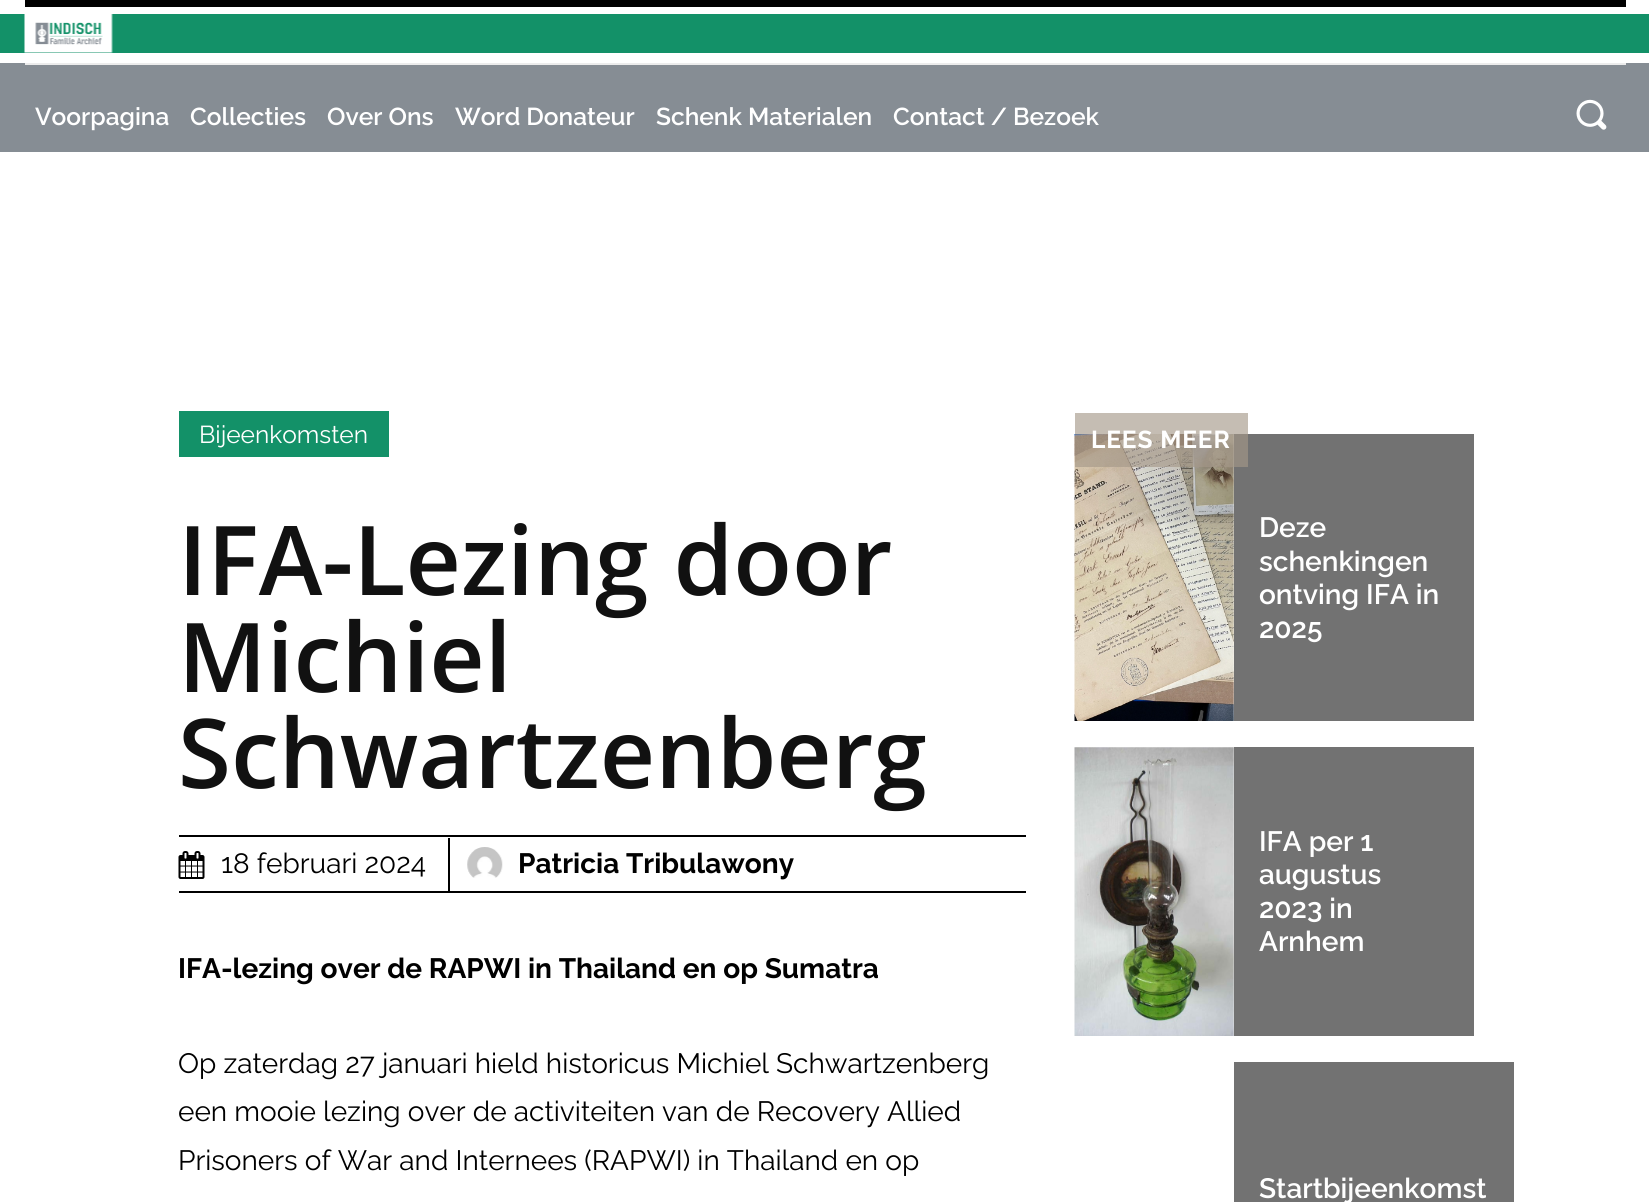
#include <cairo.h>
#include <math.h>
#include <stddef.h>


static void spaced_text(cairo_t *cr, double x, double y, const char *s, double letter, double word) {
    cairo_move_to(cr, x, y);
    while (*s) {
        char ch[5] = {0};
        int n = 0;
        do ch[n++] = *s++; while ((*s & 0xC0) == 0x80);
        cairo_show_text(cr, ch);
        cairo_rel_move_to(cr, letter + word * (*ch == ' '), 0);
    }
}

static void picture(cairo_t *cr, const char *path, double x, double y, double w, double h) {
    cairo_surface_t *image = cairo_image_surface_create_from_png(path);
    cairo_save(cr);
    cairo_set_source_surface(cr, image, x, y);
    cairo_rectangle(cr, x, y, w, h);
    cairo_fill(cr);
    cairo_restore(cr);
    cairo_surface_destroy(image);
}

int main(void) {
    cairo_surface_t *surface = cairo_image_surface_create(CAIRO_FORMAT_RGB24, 1649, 1202);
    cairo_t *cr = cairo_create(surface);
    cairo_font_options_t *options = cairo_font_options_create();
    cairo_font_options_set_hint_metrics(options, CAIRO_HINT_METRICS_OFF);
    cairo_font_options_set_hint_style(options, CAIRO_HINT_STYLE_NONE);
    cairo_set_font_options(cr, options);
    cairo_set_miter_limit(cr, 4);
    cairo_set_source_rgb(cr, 1, 1, 1);
    cairo_paint(cr);
    cairo_set_source_rgb(cr, 0, 0, 0);
    cairo_rectangle(cr, 25, 0, 1601, 7);
    cairo_fill(cr);
    cairo_set_source_rgb(cr, 0.075, 0.569, 0.408);
    cairo_rectangle(cr, 0, 14, 1649, 39);
    cairo_fill(cr);
    picture(cr, "img1.png", 24, 14, 89, 39);
    cairo_set_source_rgb(cr, 0.525, 0.553, 0.58);
    cairo_rectangle(cr, 0, 63, 1649, 89);
    cairo_fill(cr);
    cairo_set_source_rgb(cr, 0.922, 0.922, 0.922);
    cairo_rectangle(cr, 25, 63, 1601, 2);
    cairo_fill(cr);
    cairo_select_font_face(cr, "Raleway SemiBold", CAIRO_FONT_SLANT_NORMAL, CAIRO_FONT_WEIGHT_NORMAL);
    cairo_set_font_size(cr, 24.5);
    cairo_set_source_rgb(cr, 1, 1, 1);
    cairo_move_to(cr, 35, 125);
    cairo_show_text(cr, "Voorpagina");
    cairo_move_to(cr, 190, 125);
    cairo_show_text(cr, "Collecties");
    cairo_move_to(cr, 327, 125);
    cairo_show_text(cr, "Over Ons");
    cairo_move_to(cr, 455, 125);
    cairo_show_text(cr, "Word Donateur");
    cairo_move_to(cr, 656, 125);
    cairo_show_text(cr, "Schenk Materialen");
    cairo_move_to(cr, 893, 125);
    cairo_show_text(cr, "Contact / Bezoek");
    picture(cr, "img2.png", 1576, 99, 31, 31);
    cairo_set_source_rgb(cr, 0.075, 0.569, 0.408);
    cairo_rectangle(cr, 179, 411, 210, 46);
    cairo_fill(cr);
    cairo_select_font_face(cr, "Raleway", CAIRO_FONT_SLANT_NORMAL, CAIRO_FONT_WEIGHT_NORMAL);
    cairo_set_source_rgb(cr, 1, 1, 1);
    cairo_move_to(cr, 199, 443);
    cairo_show_text(cr, "Bijeenkomsten");
    cairo_select_font_face(cr, "Open Sans SemiBold", CAIRO_FONT_SLANT_NORMAL, CAIRO_FONT_WEIGHT_NORMAL);
    cairo_set_font_size(cr, 96.25);
    cairo_set_source_rgb(cr, 0.067, 0.067, 0.067);
    cairo_move_to(cr, 178, 595);
    cairo_show_text(cr, "IFA-Lezing door");
    cairo_move_to(cr, 178, 692);
    cairo_show_text(cr, "Michiel");
    cairo_move_to(cr, 178, 788);
    cairo_show_text(cr, "Schwartzenberg");
    cairo_set_source_rgb(cr, 0, 0, 0);
    cairo_rectangle(cr, 179, 835, 847, 2);
    cairo_fill(cr);
    cairo_rectangle(cr, 179, 891, 847, 2);
    cairo_fill(cr);
    picture(cr, "img3.png", 178, 851, 27, 28);
    cairo_select_font_face(cr, "Raleway", CAIRO_FONT_SLANT_NORMAL, CAIRO_FONT_WEIGHT_NORMAL);
    cairo_set_font_size(cr, 28);
    cairo_move_to(cr, 221, 873);
    cairo_show_text(cr, "18 februari 2024");
    cairo_rectangle(cr, 448, 838, 2, 53);
    cairo_fill(cr);
    picture(cr, "img4.png", 467, 847, 36, 31);
    cairo_select_font_face(cr, "Raleway", CAIRO_FONT_SLANT_NORMAL, CAIRO_FONT_WEIGHT_BOLD);
    cairo_move_to(cr, 518, 873);
    cairo_show_text(cr, "Patricia Tribulawony");
    cairo_move_to(cr, 178, 978);
    cairo_show_text(cr, "IFA-lezing over de RAPWI in Thailand en op Sumatra");
    cairo_select_font_face(cr, "Raleway", CAIRO_FONT_SLANT_NORMAL, CAIRO_FONT_WEIGHT_NORMAL);
    cairo_move_to(cr, 178, 1073);
    cairo_show_text(cr, "Op zaterdag 27 januari hield historicus Michiel Schwartzenberg");
    cairo_move_to(cr, 178, 1121);
    cairo_show_text(cr, "een mooie lezing over de activiteiten van de Recovery Allied");
    cairo_move_to(cr, 178, 1170);
    cairo_show_text(cr, "Prisoners of War and Internees (RAPWI) in Thailand en op");
    picture(cr, "img5.png", 1074, 434, 160, 287);
    cairo_set_source_rgb(cr, 0.447, 0.447, 0.447);
    cairo_rectangle(cr, 1234, 434, 240, 287);
    cairo_fill(cr);
    cairo_set_source_rgba(cr, 0.643, 0.596, 0.533, 0.64);
    cairo_rectangle(cr, 1075, 413, 173, 54);
    cairo_fill(cr);
    cairo_select_font_face(cr, "Raleway", CAIRO_FONT_SLANT_NORMAL, CAIRO_FONT_WEIGHT_BOLD);
    cairo_set_font_size(cr, 24.5);
    cairo_set_source_rgb(cr, 1, 1, 1);
    spaced_text(cr, 1091, 448, "LEES MEER", 0.9, 0);
    cairo_select_font_face(cr, "Raleway SemiBold", CAIRO_FONT_SLANT_NORMAL, CAIRO_FONT_WEIGHT_NORMAL);
    cairo_set_font_size(cr, 28);
    cairo_move_to(cr, 1259, 537);
    cairo_show_text(cr, "Deze");
    cairo_move_to(cr, 1259, 571);
    cairo_show_text(cr, "schenkingen");
    cairo_move_to(cr, 1259, 604);
    cairo_show_text(cr, "ontving IFA in");
    cairo_move_to(cr, 1259, 638);
    cairo_show_text(cr, "2025");
    picture(cr, "img6.png", 1074, 747, 160, 289);
    cairo_set_source_rgb(cr, 0.447, 0.447, 0.447);
    cairo_rectangle(cr, 1234, 747, 240, 289);
    cairo_fill(cr);
    cairo_set_source_rgb(cr, 1, 1, 1);
    cairo_move_to(cr, 1259, 851);
    cairo_show_text(cr, "IFA per 1");
    cairo_move_to(cr, 1259, 884);
    cairo_show_text(cr, "augustus");
    cairo_move_to(cr, 1259, 918);
    cairo_show_text(cr, "2023 in");
    cairo_move_to(cr, 1259, 951);
    cairo_show_text(cr, "Arnhem");
    cairo_set_source_rgb(cr, 0.447, 0.447, 0.447);
    cairo_rectangle(cr, 1234, 1062, 280, 140);
    cairo_fill(cr);
    cairo_set_source_rgb(cr, 1, 1, 1);
    cairo_move_to(cr, 1259, 1198);
    cairo_show_text(cr, "Startbijeenkomst");
    cairo_surface_write_to_png(surface, "page.png");
    cairo_font_options_destroy(options);
    cairo_destroy(cr);
    cairo_surface_destroy(surface);
    return 0;
}
